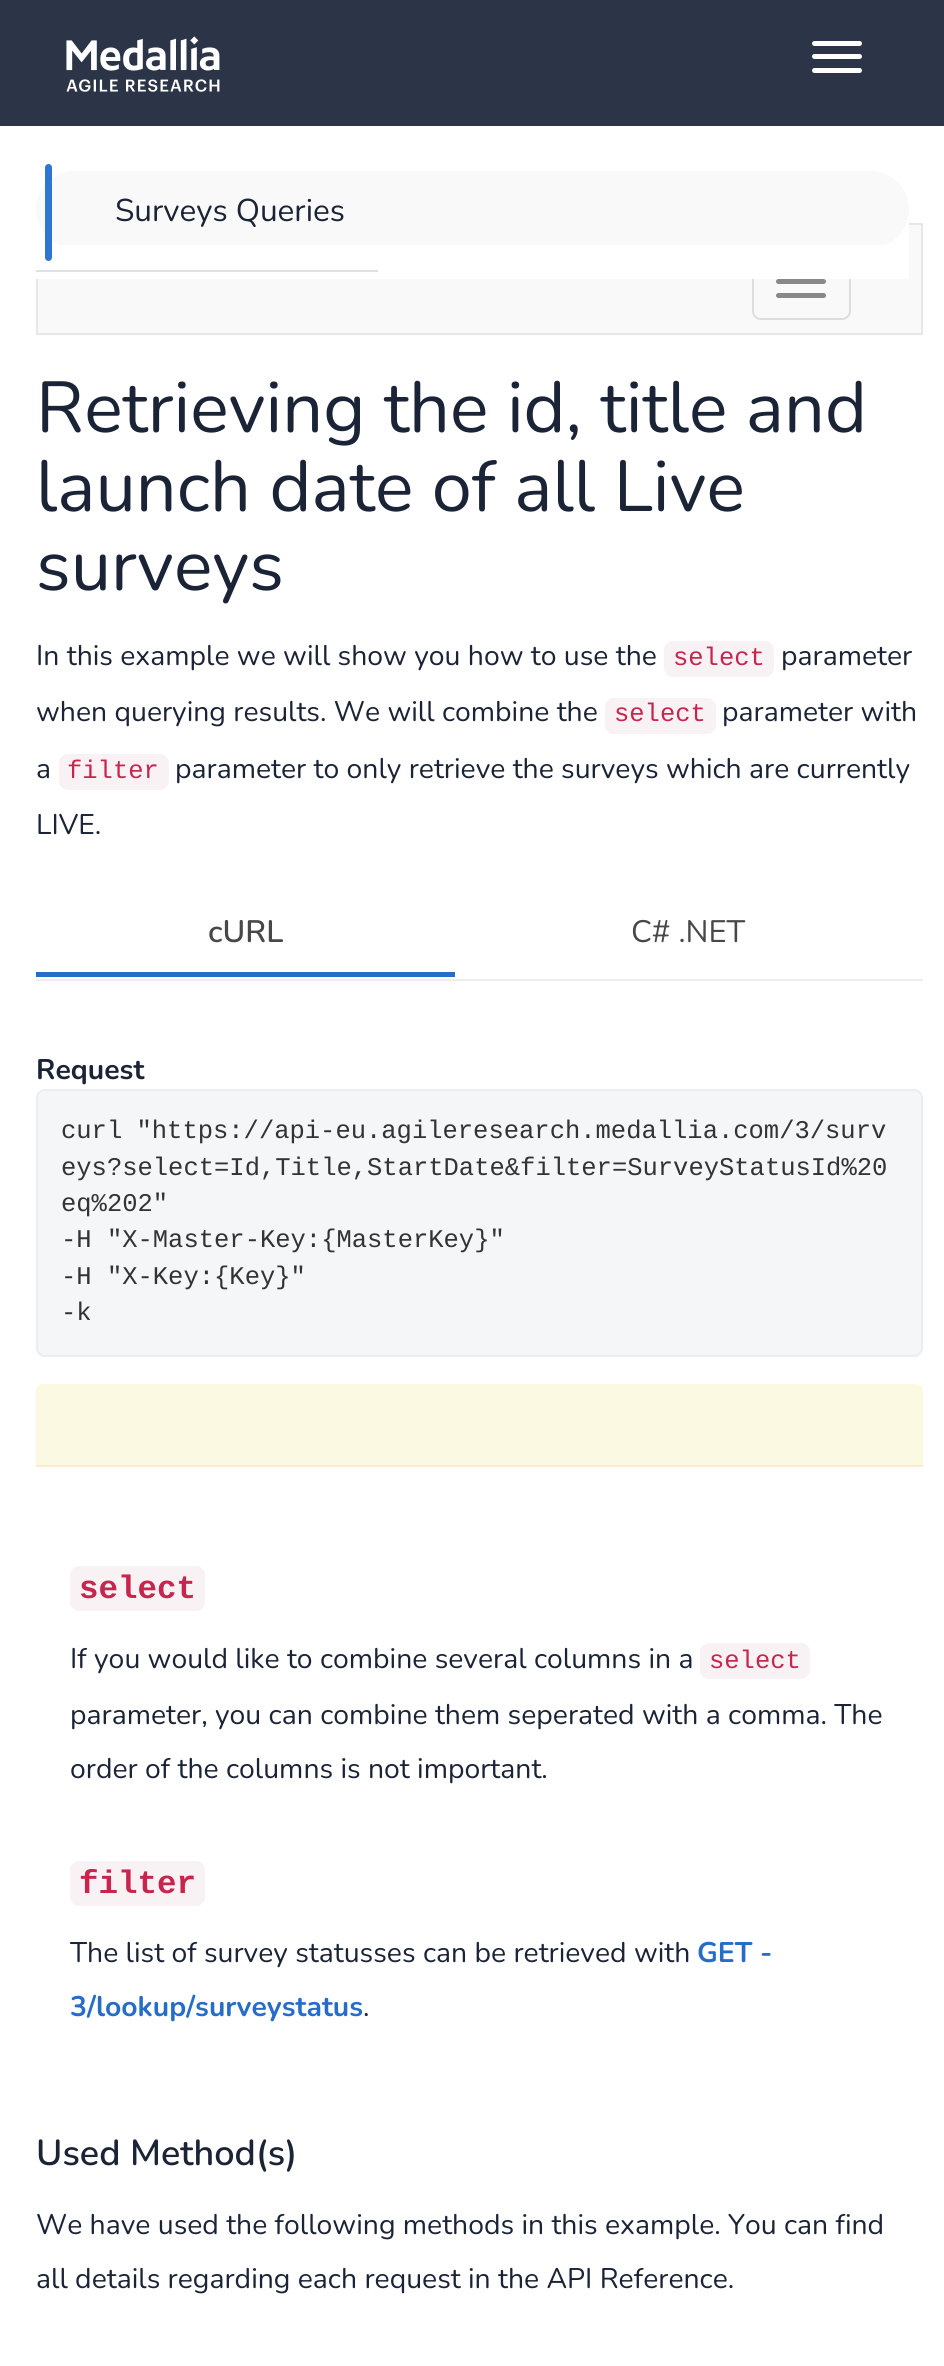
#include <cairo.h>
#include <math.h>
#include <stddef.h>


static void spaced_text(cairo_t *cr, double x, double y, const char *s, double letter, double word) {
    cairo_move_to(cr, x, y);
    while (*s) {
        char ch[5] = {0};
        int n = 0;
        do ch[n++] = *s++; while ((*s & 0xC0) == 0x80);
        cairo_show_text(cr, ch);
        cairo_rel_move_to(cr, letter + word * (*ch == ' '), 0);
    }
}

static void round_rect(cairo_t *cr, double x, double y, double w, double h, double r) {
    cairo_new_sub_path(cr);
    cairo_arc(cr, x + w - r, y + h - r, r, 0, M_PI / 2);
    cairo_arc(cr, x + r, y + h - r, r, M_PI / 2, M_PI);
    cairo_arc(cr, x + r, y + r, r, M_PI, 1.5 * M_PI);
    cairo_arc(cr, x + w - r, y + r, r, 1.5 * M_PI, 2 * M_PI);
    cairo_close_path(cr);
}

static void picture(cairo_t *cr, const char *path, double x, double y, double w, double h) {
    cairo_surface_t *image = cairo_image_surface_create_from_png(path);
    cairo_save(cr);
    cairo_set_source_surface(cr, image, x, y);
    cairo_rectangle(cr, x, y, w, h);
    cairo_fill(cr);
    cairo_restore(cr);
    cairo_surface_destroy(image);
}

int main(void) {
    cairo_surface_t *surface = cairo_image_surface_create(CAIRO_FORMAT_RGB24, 944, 2366);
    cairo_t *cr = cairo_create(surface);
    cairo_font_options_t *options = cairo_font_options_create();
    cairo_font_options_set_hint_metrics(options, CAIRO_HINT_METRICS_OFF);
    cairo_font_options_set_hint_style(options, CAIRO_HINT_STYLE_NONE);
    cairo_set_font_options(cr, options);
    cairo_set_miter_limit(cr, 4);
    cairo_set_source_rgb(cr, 1, 1, 1);
    cairo_paint(cr);
    cairo_set_source_rgb(cr, 0.173, 0.208, 0.282);
    cairo_rectangle(cr, 0, 0, 944, 126);
    cairo_fill(cr);
    picture(cr, "img1.png", 66, 36, 154, 56);
    cairo_set_source_rgb(cr, 1, 1, 1);
    round_rect(cr, 812, 41, 50, 5, 2.5);
    cairo_fill(cr);
    round_rect(cr, 812, 54, 50, 5, 2.5);
    cairo_fill(cr);
    round_rect(cr, 812, 68, 50, 5, 2.5);
    cairo_fill(cr);
    cairo_set_source_rgb(cr, 0.973, 0.973, 0.973);
    cairo_rectangle(cr, 37, 224, 885, 110);
    cairo_fill_preserve(cr);
    cairo_set_source_rgb(cr, 0.906, 0.906, 0.906);
    cairo_stroke(cr);
    round_rect(cr, 753, 244, 97, 75, 8);
    cairo_set_source_rgb(cr, 0.867, 0.867, 0.867);
    cairo_stroke(cr);
    cairo_set_source_rgb(cr, 1, 1, 1);
    cairo_rectangle(cr, 36, 223, 873, 56);
    cairo_fill(cr);
    cairo_save(cr);
    cairo_rectangle(cr, 36, 171, 873, 74);
    cairo_clip(cr);
    cairo_set_source_rgb(cr, 0.973, 0.976, 0.98);
    round_rect(cr, 36, 171, 873, 77, 38.5);
    cairo_fill(cr);
    cairo_restore(cr);
    cairo_set_source_rgb(cr, 0.867, 0.882, 0.898);
    cairo_rectangle(cr, 36, 270, 342, 2);
    cairo_fill(cr);
    cairo_set_source_rgb(cr, 0.18, 0.467, 0.816);
    round_rect(cr, 45, 164, 7, 97, 3.5);
    cairo_fill(cr);
    cairo_select_font_face(cr, "Nunito ExtraLight", CAIRO_FONT_SLANT_NORMAL, CAIRO_FONT_WEIGHT_NORMAL);
    cairo_set_font_size(cr, 31.5);
    cairo_set_source_rgb(cr, 0.106, 0.141, 0.216);
    cairo_move_to(cr, 115, 221);
    cairo_show_text(cr, "Surveys Queries");
    cairo_set_source_rgb(cr, 0.533, 0.533, 0.533);
    round_rect(cr, 776, 279, 50, 5, 2.5);
    cairo_fill(cr);
    round_rect(cr, 776, 293, 50, 5, 2.5);
    cairo_fill(cr);
    cairo_set_font_size(cr, 72);
    cairo_set_source_rgb(cr, 0.106, 0.141, 0.216);
    cairo_move_to(cr, 36, 432);
    cairo_show_text(cr, "Retrieving the id, title and");
    cairo_move_to(cr, 36, 511);
    cairo_show_text(cr, "launch date of all Live");
    cairo_move_to(cr, 36, 590);
    cairo_show_text(cr, "surveys");
    cairo_set_font_size(cr, 28.35);
    cairo_move_to(cr, 36, 665);
    cairo_show_text(cr, "In this example we will show you how to use the");
    cairo_set_source_rgb(cr, 0.976, 0.949, 0.957);
    round_rect(cr, 664, 641, 110, 36, 9);
    cairo_fill(cr);
    cairo_select_font_face(cr, "Liberation Mono", CAIRO_FONT_SLANT_NORMAL, CAIRO_FONT_WEIGHT_NORMAL);
    cairo_set_font_size(cr, 25.5);
    cairo_set_source_rgb(cr, 0.78, 0.145, 0.306);
    cairo_move_to(cr, 673, 665);
    cairo_show_text(cr, "select");
    cairo_select_font_face(cr, "Nunito ExtraLight", CAIRO_FONT_SLANT_NORMAL, CAIRO_FONT_WEIGHT_NORMAL);
    cairo_set_font_size(cr, 28.35);
    cairo_set_source_rgb(cr, 0.106, 0.141, 0.216);
    cairo_move_to(cr, 781, 665);
    cairo_show_text(cr, "parameter");
    cairo_move_to(cr, 36, 721);
    cairo_show_text(cr, "when querying results. We will combine the");
    cairo_set_source_rgb(cr, 0.976, 0.949, 0.957);
    round_rect(cr, 605, 698, 111, 36, 9);
    cairo_fill(cr);
    cairo_select_font_face(cr, "Liberation Mono", CAIRO_FONT_SLANT_NORMAL, CAIRO_FONT_WEIGHT_NORMAL);
    cairo_set_font_size(cr, 25.5);
    cairo_set_source_rgb(cr, 0.78, 0.145, 0.306);
    cairo_move_to(cr, 614, 721);
    cairo_show_text(cr, "select");
    cairo_select_font_face(cr, "Nunito ExtraLight", CAIRO_FONT_SLANT_NORMAL, CAIRO_FONT_WEIGHT_NORMAL);
    cairo_set_font_size(cr, 28.35);
    cairo_set_source_rgb(cr, 0.106, 0.141, 0.216);
    cairo_move_to(cr, 722, 721);
    cairo_show_text(cr, "parameter with");
    cairo_move_to(cr, 36, 778);
    cairo_show_text(cr, "a");
    cairo_set_source_rgb(cr, 0.976, 0.949, 0.957);
    round_rect(cr, 59, 754, 110, 36, 9);
    cairo_fill(cr);
    cairo_select_font_face(cr, "Liberation Mono", CAIRO_FONT_SLANT_NORMAL, CAIRO_FONT_WEIGHT_NORMAL);
    cairo_set_font_size(cr, 25.5);
    cairo_set_source_rgb(cr, 0.78, 0.145, 0.306);
    cairo_move_to(cr, 67, 778);
    cairo_show_text(cr, "filter");
    cairo_select_font_face(cr, "Nunito ExtraLight", CAIRO_FONT_SLANT_NORMAL, CAIRO_FONT_WEIGHT_NORMAL);
    cairo_set_font_size(cr, 28.35);
    cairo_set_source_rgb(cr, 0.106, 0.141, 0.216);
    cairo_move_to(cr, 175, 778);
    cairo_show_text(cr, "parameter to only retrieve the surveys which are currently");
    cairo_move_to(cr, 36, 834);
    cairo_show_text(cr, "LIVE.");
    cairo_set_source_rgb(cr, 0.918, 0.929, 0.937);
    cairo_rectangle(cr, 36, 979, 887, 2);
    cairo_fill(cr);
    cairo_set_source_rgb(cr, 0.149, 0.427, 0.788);
    cairo_rectangle(cr, 36, 972, 419, 5);
    cairo_fill(cr);
    cairo_select_font_face(cr, "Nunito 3 ExtraLight", CAIRO_FONT_SLANT_NORMAL, CAIRO_FONT_WEIGHT_NORMAL);
    cairo_set_font_size(cr, 31);
    cairo_set_source_rgb(cr, 0.282, 0.282, 0.282);
    cairo_move_to(cr, 208, 942);
    cairo_show_text(cr, "cURL");
    cairo_select_font_face(cr, "Nunito ExtraLight", CAIRO_FONT_SLANT_NORMAL, CAIRO_FONT_WEIGHT_NORMAL);
    cairo_move_to(cr, 631, 942);
    cairo_show_text(cr, "C# .NET");
    cairo_select_font_face(cr, "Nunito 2 ExtraLight", CAIRO_FONT_SLANT_NORMAL, CAIRO_FONT_WEIGHT_NORMAL);
    cairo_set_font_size(cr, 28.35);
    cairo_set_source_rgb(cr, 0.106, 0.141, 0.216);
    cairo_move_to(cr, 36, 1079);
    cairo_show_text(cr, "Request");
    cairo_set_source_rgb(cr, 0.957, 0.961, 0.969);
    round_rect(cr, 37, 1090, 885, 266, 8);
    cairo_fill_preserve(cr);
    cairo_set_source_rgb(cr, 0.918, 0.929, 0.937);
    cairo_stroke(cr);
    cairo_select_font_face(cr, "Liberation Mono", CAIRO_FONT_SLANT_NORMAL, CAIRO_FONT_WEIGHT_NORMAL);
    cairo_set_font_size(cr, 25.5);
    cairo_set_source_rgb(cr, 0.2, 0.2, 0.2);
    spaced_text(cr, 61, 1138, "curl \"https://api-eu.agileresearch.medallia.com/3/surv", 0, -1);
    cairo_move_to(cr, 61, 1175);
    cairo_show_text(cr, "eys?select=Id,Title,StartDate&filter=SurveyStatusId%20");
    cairo_move_to(cr, 61, 1211);
    cairo_show_text(cr, "eq%202\"");
    cairo_move_to(cr, 61, 1247);
    cairo_show_text(cr, "-H \"X-Master-Key:{MasterKey}\"");
    cairo_move_to(cr, 61, 1284);
    cairo_show_text(cr, "-H \"X-Key:{Key}\"");
    cairo_move_to(cr, 61, 1320);
    cairo_show_text(cr, "-k");
    cairo_set_source_rgb(cr, 0.988, 0.973, 0.89);
    cairo_new_path(cr);
    cairo_move_to(cr, 43, 1384);
    cairo_line_to(cr, 916, 1384);
    cairo_curve_to(cr, 920, 1384, 923, 1387, 923, 1391);
    cairo_line_to(cr, 923, 1467);
    cairo_line_to(cr, 36, 1467);
    cairo_line_to(cr, 36, 1391);
    cairo_curve_to(cr, 36, 1387, 39, 1384, 43, 1384);
    cairo_close_path(cr);
    cairo_fill(cr);
    cairo_set_source_rgb(cr, 0.98, 0.922, 0.8);
    cairo_rectangle(cr, 36, 1465, 887, 2);
    cairo_fill(cr);
    cairo_set_source_rgb(cr, 0.976, 0.949, 0.957);
    round_rect(cr, 70, 1566, 135, 45, 9);
    cairo_fill(cr);
    cairo_select_font_face(cr, "Liberation Mono", CAIRO_FONT_SLANT_NORMAL, CAIRO_FONT_WEIGHT_BOLD);
    cairo_set_font_size(cr, 32.5);
    cairo_set_source_rgb(cr, 0.78, 0.145, 0.306);
    cairo_move_to(cr, 79, 1598);
    cairo_show_text(cr, "select");
    cairo_select_font_face(cr, "Nunito ExtraLight", CAIRO_FONT_SLANT_NORMAL, CAIRO_FONT_WEIGHT_NORMAL);
    cairo_set_font_size(cr, 28.35);
    cairo_set_source_rgb(cr, 0.106, 0.141, 0.216);
    cairo_move_to(cr, 70, 1668);
    cairo_show_text(cr, "If you would like to combine several columns in a");
    cairo_set_source_rgb(cr, 0.976, 0.949, 0.957);
    round_rect(cr, 700, 1643, 110, 36, 9);
    cairo_fill(cr);
    cairo_select_font_face(cr, "Liberation Mono", CAIRO_FONT_SLANT_NORMAL, CAIRO_FONT_WEIGHT_NORMAL);
    cairo_set_font_size(cr, 25.5);
    cairo_set_source_rgb(cr, 0.78, 0.145, 0.306);
    cairo_move_to(cr, 709, 1668);
    cairo_show_text(cr, "select");
    cairo_select_font_face(cr, "Nunito ExtraLight", CAIRO_FONT_SLANT_NORMAL, CAIRO_FONT_WEIGHT_NORMAL);
    cairo_set_font_size(cr, 28.35);
    cairo_set_source_rgb(cr, 0.106, 0.141, 0.216);
    cairo_move_to(cr, 70, 1724);
    cairo_show_text(cr, "parameter, you can combine them seperated with a comma. The");
    cairo_move_to(cr, 70, 1778);
    cairo_show_text(cr, "order of the columns is not important.");
    cairo_set_source_rgb(cr, 0.976, 0.949, 0.957);
    round_rect(cr, 70, 1861, 135, 45, 9);
    cairo_fill(cr);
    cairo_select_font_face(cr, "Liberation Mono", CAIRO_FONT_SLANT_NORMAL, CAIRO_FONT_WEIGHT_BOLD);
    cairo_set_font_size(cr, 32.5);
    cairo_set_source_rgb(cr, 0.78, 0.145, 0.306);
    cairo_move_to(cr, 79, 1893);
    cairo_show_text(cr, "filter");
    cairo_select_font_face(cr, "Nunito ExtraLight", CAIRO_FONT_SLANT_NORMAL, CAIRO_FONT_WEIGHT_NORMAL);
    cairo_set_font_size(cr, 28.35);
    cairo_set_source_rgb(cr, 0.106, 0.141, 0.216);
    cairo_move_to(cr, 70, 1962);
    cairo_show_text(cr, "The list of survey statusses can be retrieved with");
    cairo_select_font_face(cr, "Nunito 2 ExtraLight", CAIRO_FONT_SLANT_NORMAL, CAIRO_FONT_WEIGHT_NORMAL);
    cairo_set_source_rgb(cr, 0.149, 0.427, 0.788);
    cairo_move_to(cr, 697, 1962);
    cairo_show_text(cr, "GET -");
    cairo_move_to(cr, 70, 2016);
    cairo_show_text(cr, "3/lookup/surveystatus");
    cairo_select_font_face(cr, "Nunito ExtraLight", CAIRO_FONT_SLANT_NORMAL, CAIRO_FONT_WEIGHT_NORMAL);
    cairo_set_source_rgb(cr, 0.106, 0.141, 0.216);
    cairo_move_to(cr, 363, 2016);
    cairo_show_text(cr, ".");
    cairo_select_font_face(cr, "Nunito 3 ExtraLight", CAIRO_FONT_SLANT_NORMAL, CAIRO_FONT_WEIGHT_NORMAL);
    cairo_set_font_size(cr, 36);
    cairo_move_to(cr, 36, 2165);
    cairo_show_text(cr, "Used Method(s)");
    cairo_select_font_face(cr, "Nunito ExtraLight", CAIRO_FONT_SLANT_NORMAL, CAIRO_FONT_WEIGHT_NORMAL);
    cairo_set_font_size(cr, 28.35);
    cairo_move_to(cr, 36, 2234);
    cairo_show_text(cr, "We have used the following methods in this example. You can find");
    cairo_move_to(cr, 36, 2288);
    cairo_show_text(cr, "all details regarding each request in the API Reference.");
    cairo_surface_write_to_png(surface, "page.png");
    cairo_font_options_destroy(options);
    cairo_destroy(cr);
    cairo_surface_destroy(surface);
    return 0;
}
